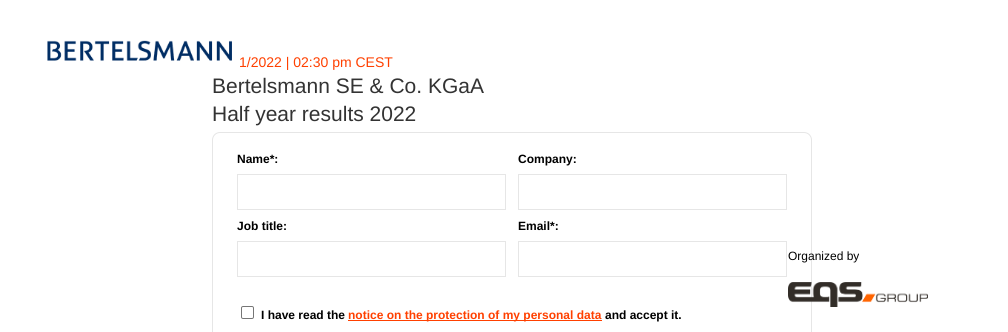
#include <cairo.h>
#include <math.h>
#include <stddef.h>


static void round_rect(cairo_t *cr, double x, double y, double w, double h, double r) {
    cairo_new_sub_path(cr);
    cairo_arc(cr, x + w - r, y + h - r, r, 0, M_PI / 2);
    cairo_arc(cr, x + r, y + h - r, r, M_PI / 2, M_PI);
    cairo_arc(cr, x + r, y + r, r, M_PI, 1.5 * M_PI);
    cairo_arc(cr, x + w - r, y + r, r, 1.5 * M_PI, 2 * M_PI);
    cairo_close_path(cr);
}

static void picture(cairo_t *cr, const char *path, double x, double y, double w, double h) {
    cairo_surface_t *image = cairo_image_surface_create_from_png(path);
    cairo_save(cr);
    cairo_set_source_surface(cr, image, x, y);
    cairo_rectangle(cr, x, y, w, h);
    cairo_fill(cr);
    cairo_restore(cr);
    cairo_surface_destroy(image);
}

int main(void) {
    cairo_surface_t *surface = cairo_image_surface_create(CAIRO_FORMAT_RGB24, 1008, 332);
    cairo_t *cr = cairo_create(surface);
    cairo_font_options_t *options = cairo_font_options_create();
    cairo_font_options_set_hint_metrics(options, CAIRO_HINT_METRICS_OFF);
    cairo_font_options_set_hint_style(options, CAIRO_HINT_STYLE_NONE);
    cairo_set_font_options(cr, options);
    cairo_set_miter_limit(cr, 4);
    cairo_set_source_rgb(cr, 1, 1, 1);
    cairo_paint(cr);
    picture(cr, "img1.png", 47, 40, 192, 22);
    cairo_select_font_face(cr, "Liberation Sans", CAIRO_FONT_SLANT_NORMAL, CAIRO_FONT_WEIGHT_NORMAL);
    cairo_set_font_size(cr, 14);
    cairo_set_source_rgb(cr, 1, 0.251, 0);
    cairo_move_to(cr, 239, 67);
    cairo_show_text(cr, "1/2022 | 02:30 pm CEST");
    cairo_set_font_size(cr, 21);
    cairo_set_source_rgb(cr, 0.2, 0.2, 0.2);
    cairo_move_to(cr, 212, 93);
    cairo_show_text(cr, "Bertelsmann SE & Co. KGaA");
    cairo_move_to(cr, 212, 121);
    cairo_show_text(cr, "Half year results 2022");
    round_rect(cr, 212.5, 132.5, 599, 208, 7.5);
    cairo_set_source_rgb(cr, 0.902, 0.902, 0.902);
    cairo_set_line_width(cr, 1);
    cairo_stroke(cr);
    cairo_select_font_face(cr, "Liberation Sans", CAIRO_FONT_SLANT_NORMAL, CAIRO_FONT_WEIGHT_BOLD);
    cairo_set_font_size(cr, 12);
    cairo_set_source_rgb(cr, 0, 0, 0);
    cairo_move_to(cr, 237, 163);
    cairo_show_text(cr, "Name*:");
    cairo_rectangle(cr, 237.5, 174.5, 268, 35);
    cairo_set_source_rgb(cr, 0.902, 0.902, 0.902);
    cairo_stroke(cr);
    cairo_set_source_rgb(cr, 0, 0, 0);
    cairo_move_to(cr, 518, 163);
    cairo_show_text(cr, "Company:");
    cairo_rectangle(cr, 518.5, 174.5, 268, 35);
    cairo_set_source_rgb(cr, 0.902, 0.902, 0.902);
    cairo_stroke(cr);
    cairo_set_source_rgb(cr, 0, 0, 0);
    cairo_move_to(cr, 237, 230);
    cairo_show_text(cr, "Job title:");
    cairo_rectangle(cr, 237.5, 241.5, 268, 35);
    cairo_set_source_rgb(cr, 0.902, 0.902, 0.902);
    cairo_stroke(cr);
    cairo_set_source_rgb(cr, 0, 0, 0);
    cairo_move_to(cr, 518, 230);
    cairo_show_text(cr, "Email*:");
    cairo_rectangle(cr, 518.5, 241.5, 268, 35);
    cairo_set_source_rgb(cr, 0.902, 0.902, 0.902);
    cairo_stroke(cr);
    round_rect(cr, 241.5, 306.5, 12, 12, 1.5);
    cairo_set_source_rgb(cr, 0.463, 0.463, 0.463);
    cairo_stroke(cr);
    cairo_set_source_rgb(cr, 0, 0, 0);
    cairo_move_to(cr, 261, 319);
    cairo_show_text(cr, "I have read the");
    cairo_set_source_rgb(cr, 1, 0.251, 0);
    cairo_rectangle(cr, 348, 320, 254, 1);
    cairo_fill(cr);
    cairo_move_to(cr, 348, 319);
    cairo_show_text(cr, "notice on the protection of my personal data");
    cairo_set_source_rgb(cr, 0, 0, 0);
    cairo_move_to(cr, 605, 319);
    cairo_show_text(cr, "and accept it.");
    cairo_select_font_face(cr, "Liberation Sans", CAIRO_FONT_SLANT_NORMAL, CAIRO_FONT_WEIGHT_NORMAL);
    cairo_move_to(cr, 788, 260);
    cairo_show_text(cr, "Organized by");
    picture(cr, "img2.png", 788, 282, 140, 25);
    cairo_surface_write_to_png(surface, "page.png");
    cairo_font_options_destroy(options);
    cairo_destroy(cr);
    cairo_surface_destroy(surface);
    return 0;
}
